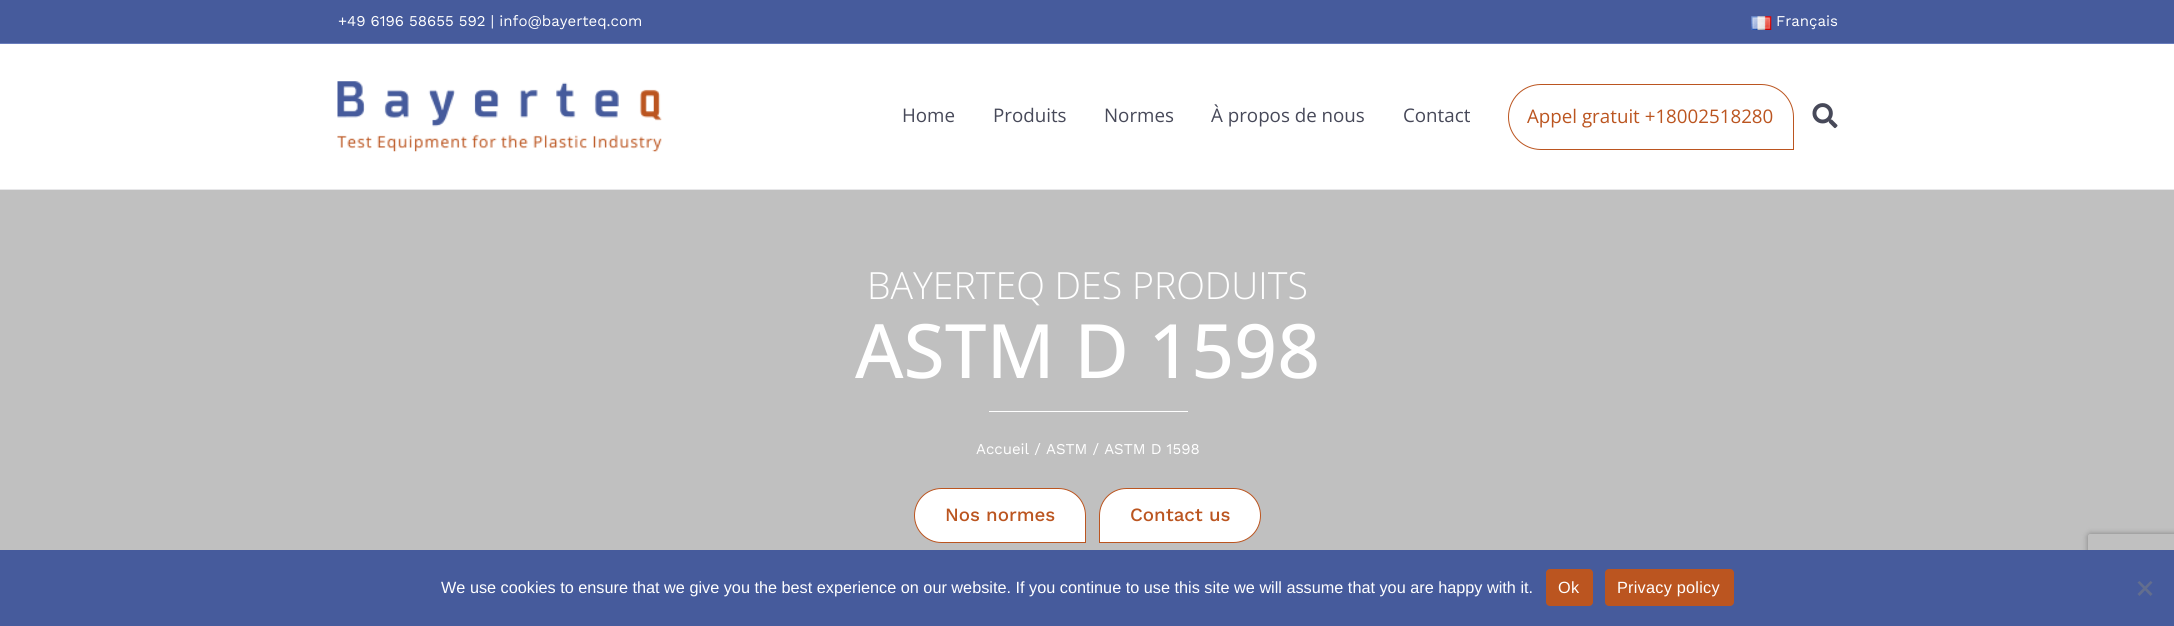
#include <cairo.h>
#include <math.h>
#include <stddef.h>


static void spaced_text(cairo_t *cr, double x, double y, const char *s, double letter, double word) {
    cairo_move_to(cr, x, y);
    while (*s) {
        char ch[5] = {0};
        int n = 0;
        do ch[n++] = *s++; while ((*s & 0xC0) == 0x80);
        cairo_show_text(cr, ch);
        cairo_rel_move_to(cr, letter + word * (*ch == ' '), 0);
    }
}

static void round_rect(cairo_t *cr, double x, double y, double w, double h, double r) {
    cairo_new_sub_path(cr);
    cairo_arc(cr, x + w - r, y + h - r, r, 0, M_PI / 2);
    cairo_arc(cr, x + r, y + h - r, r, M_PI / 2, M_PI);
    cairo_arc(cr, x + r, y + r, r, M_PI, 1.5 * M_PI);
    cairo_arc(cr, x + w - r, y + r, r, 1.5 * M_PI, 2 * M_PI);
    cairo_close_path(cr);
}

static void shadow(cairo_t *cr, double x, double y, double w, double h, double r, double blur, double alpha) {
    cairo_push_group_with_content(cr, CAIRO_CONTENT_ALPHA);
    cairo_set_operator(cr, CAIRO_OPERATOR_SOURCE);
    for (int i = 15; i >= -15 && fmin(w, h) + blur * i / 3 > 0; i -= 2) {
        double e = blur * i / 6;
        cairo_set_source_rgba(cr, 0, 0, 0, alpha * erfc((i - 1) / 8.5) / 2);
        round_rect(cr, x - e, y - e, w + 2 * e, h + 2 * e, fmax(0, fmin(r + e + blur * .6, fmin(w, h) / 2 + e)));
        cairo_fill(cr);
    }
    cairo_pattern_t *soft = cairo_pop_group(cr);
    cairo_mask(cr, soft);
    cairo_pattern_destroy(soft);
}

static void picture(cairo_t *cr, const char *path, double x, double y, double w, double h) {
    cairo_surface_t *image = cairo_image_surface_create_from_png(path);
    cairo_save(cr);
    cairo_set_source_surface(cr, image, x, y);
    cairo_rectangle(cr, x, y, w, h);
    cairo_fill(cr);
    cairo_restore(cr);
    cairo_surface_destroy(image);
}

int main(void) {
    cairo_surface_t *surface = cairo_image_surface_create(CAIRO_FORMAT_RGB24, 2174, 626);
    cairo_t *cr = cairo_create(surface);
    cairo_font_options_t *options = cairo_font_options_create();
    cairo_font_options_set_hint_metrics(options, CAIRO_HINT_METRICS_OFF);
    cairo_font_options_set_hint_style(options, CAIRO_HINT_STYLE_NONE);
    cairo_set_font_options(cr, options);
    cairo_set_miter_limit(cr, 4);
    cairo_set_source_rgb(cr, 1, 1, 1);
    cairo_paint(cr);
    cairo_set_source_rgb(cr, 0.275, 0.357, 0.612);
    cairo_rectangle(cr, 0, 0, 2174, 43);
    cairo_fill(cr);
    cairo_set_source_rgb(cr, 0.412, 0.49, 0.737);
    cairo_rectangle(cr, 0, 43, 2174, 1);
    cairo_fill(cr);
    cairo_select_font_face(cr, "Work Sans", CAIRO_FONT_SLANT_NORMAL, CAIRO_FONT_WEIGHT_NORMAL);
    cairo_set_font_size(cr, 15);
    cairo_set_source_rgb(cr, 1, 1, 1);
    cairo_move_to(cr, 338, 26);
    cairo_show_text(cr, "+49 6196 58655 592 | info@bayerteq.com");
    picture(cr, "img1.png", 1751, 16, 21, 14);
    cairo_move_to(cr, 1776, 26);
    cairo_show_text(cr, "Français");
    cairo_set_source_rgb(cr, 0.906, 0.906, 0.914);
    cairo_rectangle(cr, 0, 189, 2174, 1);
    cairo_fill(cr);
    picture(cr, "img2.png", 337, 81, 325, 71);
    cairo_select_font_face(cr, "Open Sans", CAIRO_FONT_SLANT_NORMAL, CAIRO_FONT_WEIGHT_NORMAL);
    cairo_set_font_size(cr, 18.75);
    cairo_set_source_rgb(cr, 0.278, 0.286, 0.349);
    cairo_move_to(cr, 902, 122);
    cairo_show_text(cr, "Home");
    cairo_move_to(cr, 993, 122);
    cairo_show_text(cr, "Produits");
    cairo_move_to(cr, 1104, 122);
    cairo_show_text(cr, "Normes");
    cairo_move_to(cr, 1211, 122);
    cairo_show_text(cr, "À propos de nous");
    cairo_move_to(cr, 1403, 122);
    cairo_show_text(cr, "Contact");
    cairo_new_path(cr);
    cairo_move_to(cr, 1541, 84.5);
    cairo_line_to(cr, 1761, 84.5);
    cairo_curve_to(cr, 1779, 84.5, 1793.5, 99, 1793.5, 117);
    cairo_line_to(cr, 1793.5, 149.5);
    cairo_line_to(cr, 1541, 149.5);
    cairo_curve_to(cr, 1523, 149.5, 1508.5, 135, 1508.5, 117);
    cairo_curve_to(cr, 1508.5, 99, 1523, 84.5, 1541, 84.5);
    cairo_close_path(cr);
    cairo_set_source_rgb(cr, 0.733, 0.333, 0.125);
    cairo_set_line_width(cr, 1);
    cairo_stroke(cr);
    cairo_move_to(cr, 1527, 123);
    cairo_show_text(cr, "Appel gratuit +18002518280");
    picture(cr, "img3.png", 1812, 103, 26, 26);
    cairo_set_source_rgb(cr, 0.753, 0.753, 0.753);
    cairo_rectangle(cr, 0, 190, 2174, 360);
    cairo_fill(cr);
    cairo_select_font_face(cr, "Open Sans Light", CAIRO_FONT_SLANT_NORMAL, CAIRO_FONT_WEIGHT_NORMAL);
    cairo_set_font_size(cr, 37.5);
    cairo_set_source_rgb(cr, 1, 1, 1);
    cairo_move_to(cr, 867, 299);
    cairo_show_text(cr, "BAYERTEQ DES PRODUITS");
    cairo_select_font_face(cr, "Open Sans Medium", CAIRO_FONT_SLANT_NORMAL, CAIRO_FONT_WEIGHT_NORMAL);
    cairo_set_font_size(cr, 75);
    cairo_move_to(cr, 855, 378);
    cairo_show_text(cr, "ASTM D 1598");
    cairo_rectangle(cr, 989, 411, 199, 1);
    cairo_fill(cr);
    cairo_select_font_face(cr, "Work Sans", CAIRO_FONT_SLANT_NORMAL, CAIRO_FONT_WEIGHT_NORMAL);
    cairo_set_font_size(cr, 15);
    cairo_move_to(cr, 976, 454);
    cairo_show_text(cr, "Accueil / ASTM / ASTM D 1598");
    cairo_new_path(cr);
    cairo_move_to(cr, 941.5, 488.5);
    cairo_line_to(cr, 1058.5, 488.5);
    cairo_curve_to(cr, 1073.5, 488.5, 1085.5, 500.5, 1085.5, 515.5);
    cairo_line_to(cr, 1085.5, 542.5);
    cairo_line_to(cr, 941.5, 542.5);
    cairo_curve_to(cr, 926.5, 542.5, 914.5, 530.5, 914.5, 515.5);
    cairo_curve_to(cr, 914.5, 500.5, 926.5, 488.5, 941.5, 488.5);
    cairo_close_path(cr);
    cairo_fill_preserve(cr);
    cairo_set_source_rgb(cr, 0.733, 0.333, 0.125);
    cairo_stroke(cr);
    cairo_select_font_face(cr, "Work Sans Medium", CAIRO_FONT_SLANT_NORMAL, CAIRO_FONT_WEIGHT_NORMAL);
    cairo_set_font_size(cr, 18.75);
    cairo_move_to(cr, 945, 521);
    cairo_show_text(cr, "Nos normes");
    cairo_set_source_rgb(cr, 1, 1, 1);
    cairo_new_path(cr);
    cairo_move_to(cr, 1126.5, 488.5);
    cairo_line_to(cr, 1233.5, 488.5);
    cairo_curve_to(cr, 1248.5, 488.5, 1260.5, 500.5, 1260.5, 515.5);
    cairo_curve_to(cr, 1260.5, 530.5, 1248.5, 542.5, 1233.5, 542.5);
    cairo_line_to(cr, 1099.5, 542.5);
    cairo_line_to(cr, 1099.5, 515.5);
    cairo_curve_to(cr, 1099.5, 500.5, 1111.5, 488.5, 1126.5, 488.5);
    cairo_close_path(cr);
    cairo_fill_preserve(cr);
    cairo_set_source_rgb(cr, 0.733, 0.333, 0.125);
    cairo_stroke(cr);
    cairo_move_to(cr, 1130, 521);
    cairo_show_text(cr, "Contact us");
    cairo_save(cr);
    cairo_set_fill_rule(cr, CAIRO_FILL_RULE_EVEN_ODD);
    cairo_new_path(cr);
    cairo_move_to(cr, 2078, 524);
    cairo_line_to(cr, 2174, 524);
    cairo_line_to(cr, 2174, 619);
    cairo_line_to(cr, 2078, 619);
    cairo_close_path(cr);
    cairo_move_to(cr, 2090.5, 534);
    cairo_line_to(cr, 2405.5, 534);
    cairo_curve_to(cr, 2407, 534, 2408, 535, 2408, 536.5);
    cairo_line_to(cr, 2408, 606.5);
    cairo_curve_to(cr, 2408, 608, 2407, 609, 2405.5, 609);
    cairo_line_to(cr, 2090.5, 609);
    cairo_curve_to(cr, 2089, 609, 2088, 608, 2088, 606.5);
    cairo_line_to(cr, 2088, 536.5);
    cairo_curve_to(cr, 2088, 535, 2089, 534, 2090.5, 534);
    cairo_close_path(cr);
    cairo_clip(cr);
    cairo_set_source_rgb(cr, 0.502, 0.502, 0.502);
    shadow(cr, 2088, 534, 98, 75, 2.5, 3, 1);
    cairo_restore(cr);
    cairo_set_source_rgb(cr, 0.275, 0.357, 0.612);
    cairo_rectangle(cr, 0, 550, 2174, 76);
    cairo_fill(cr);
    cairo_select_font_face(cr, "Liberation Sans", CAIRO_FONT_SLANT_NORMAL, CAIRO_FONT_WEIGHT_NORMAL);
    cairo_set_font_size(cr, 16.25);
    cairo_set_source_rgb(cr, 1, 1, 1);
    cairo_move_to(cr, 441, 593);
    cairo_show_text(cr, "We use cookies to ensure that we give you the best experience on our website. If you continue to use this site we will assume that you are happy with it.");
    cairo_set_source_rgb(cr, 0.733, 0.333, 0.125);
    round_rect(cr, 1546, 569, 47, 37, 4);
    cairo_fill(cr);
    cairo_set_source_rgb(cr, 1, 1, 1);
    spaced_text(cr, 1558, 593, "Ok", 0.25, 0);
    cairo_set_source_rgb(cr, 0.733, 0.333, 0.125);
    round_rect(cr, 1605, 569, 129, 37, 4);
    cairo_fill(cr);
    cairo_set_source_rgb(cr, 1, 1, 1);
    spaced_text(cr, 1617, 593, "Privacy policy", 0.25, 0);
    cairo_set_source_rgb(cr, 0.388, 0.431, 0.557);
    cairo_new_path(cr);
    cairo_move_to(cr, 2150.5, 581);
    cairo_line_to(cr, 2152.5, 582.5);
    cairo_line_to(cr, 2139.5, 596);
    cairo_line_to(cr, 2137.5, 594);
    cairo_close_path(cr);
    cairo_fill(cr);
    cairo_new_path(cr);
    cairo_move_to(cr, 2137.5, 582.5);
    cairo_line_to(cr, 2139.5, 581);
    cairo_line_to(cr, 2152.5, 594);
    cairo_line_to(cr, 2150.5, 596);
    cairo_close_path(cr);
    cairo_fill(cr);
    cairo_surface_write_to_png(surface, "page.png");
    cairo_font_options_destroy(options);
    cairo_destroy(cr);
    cairo_surface_destroy(surface);
    return 0;
}
